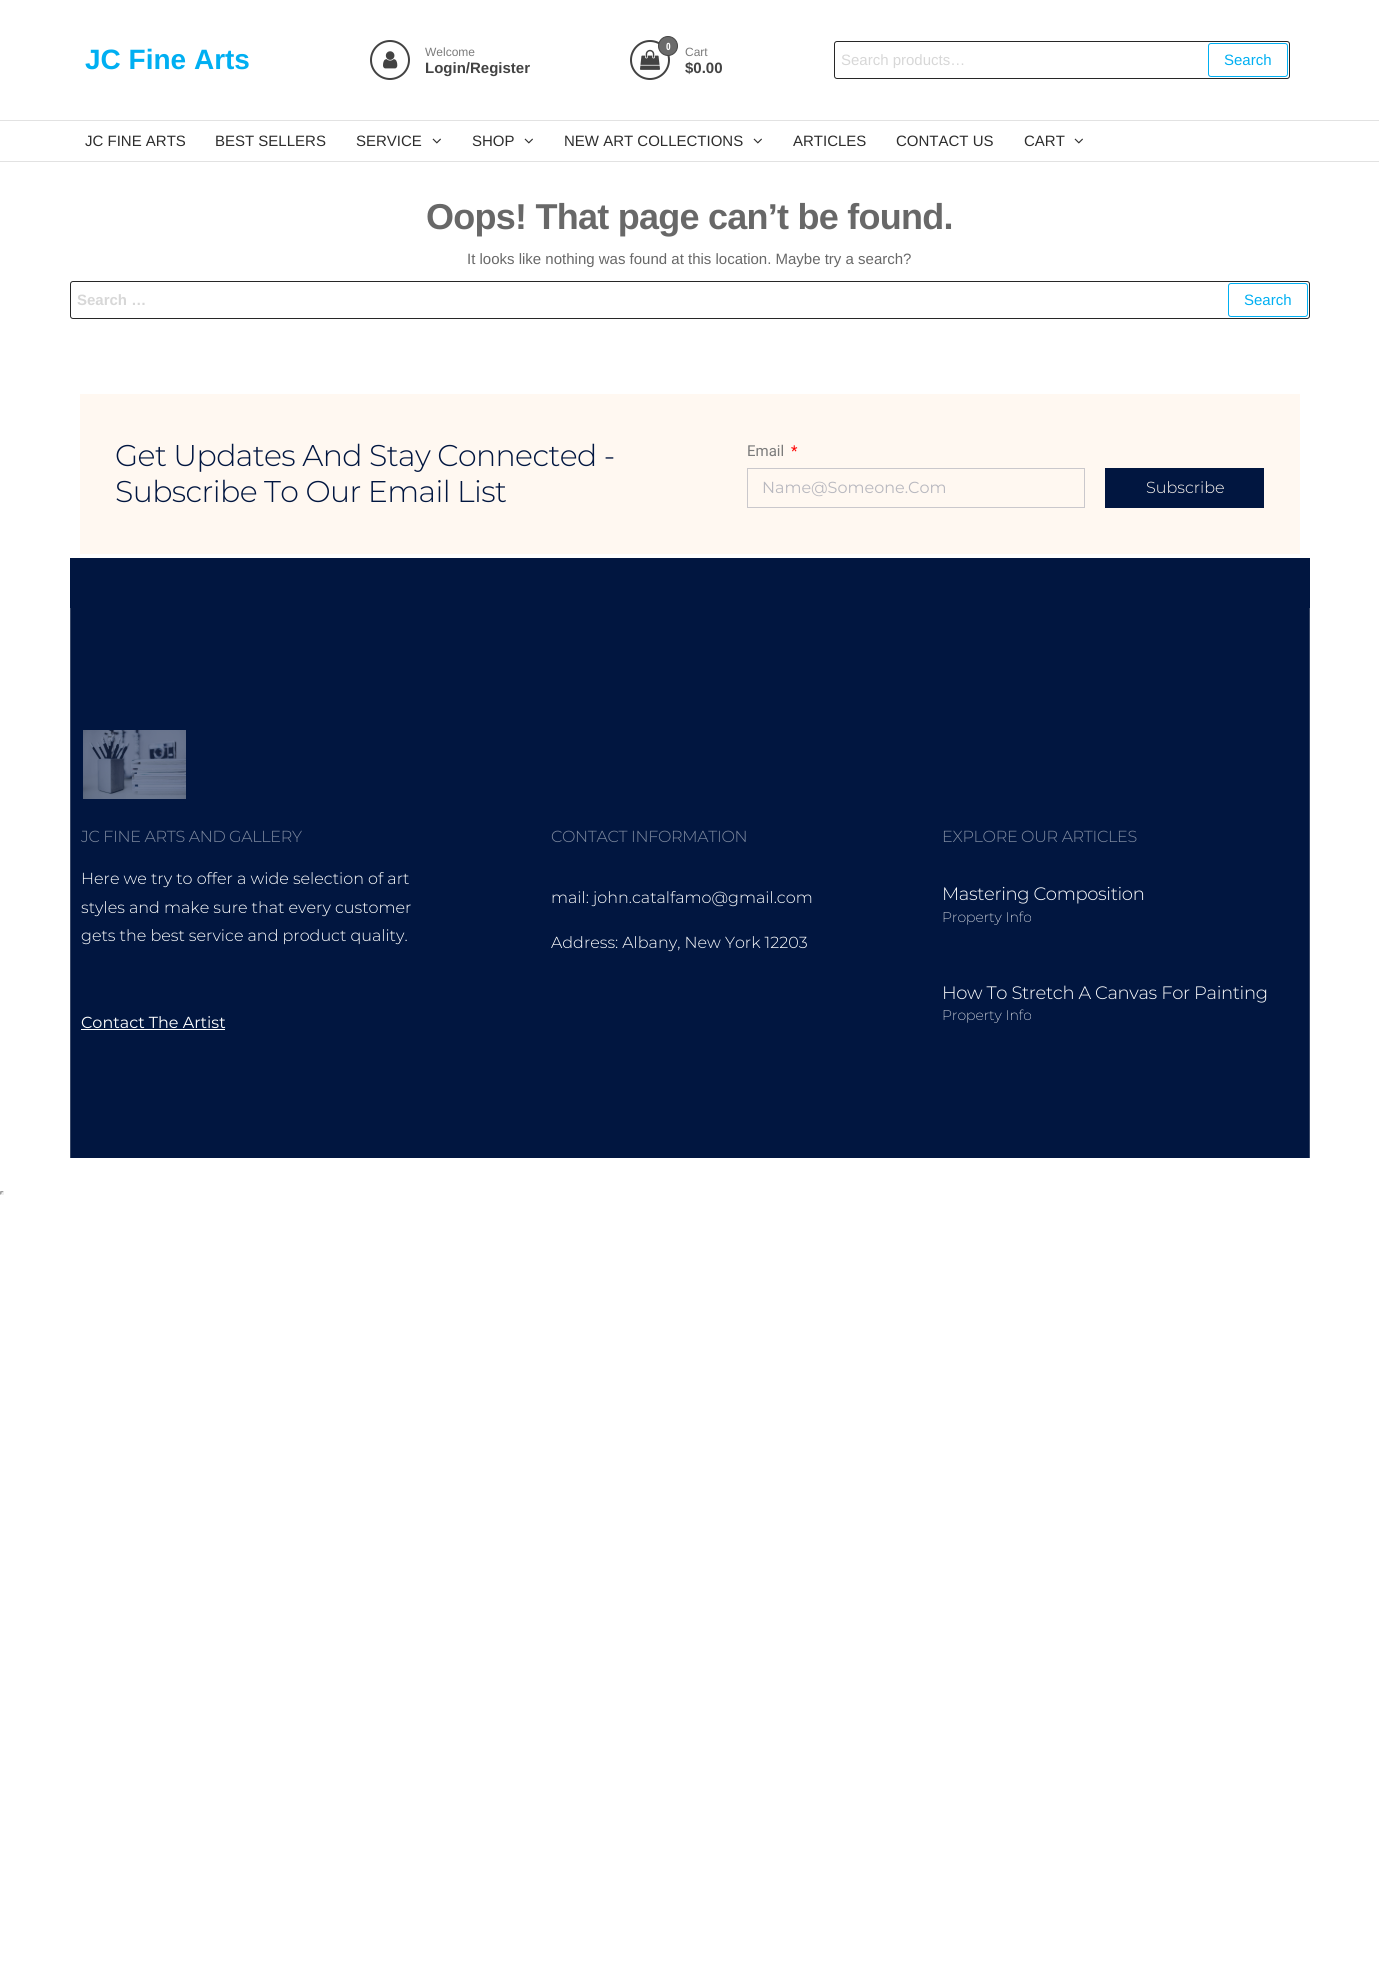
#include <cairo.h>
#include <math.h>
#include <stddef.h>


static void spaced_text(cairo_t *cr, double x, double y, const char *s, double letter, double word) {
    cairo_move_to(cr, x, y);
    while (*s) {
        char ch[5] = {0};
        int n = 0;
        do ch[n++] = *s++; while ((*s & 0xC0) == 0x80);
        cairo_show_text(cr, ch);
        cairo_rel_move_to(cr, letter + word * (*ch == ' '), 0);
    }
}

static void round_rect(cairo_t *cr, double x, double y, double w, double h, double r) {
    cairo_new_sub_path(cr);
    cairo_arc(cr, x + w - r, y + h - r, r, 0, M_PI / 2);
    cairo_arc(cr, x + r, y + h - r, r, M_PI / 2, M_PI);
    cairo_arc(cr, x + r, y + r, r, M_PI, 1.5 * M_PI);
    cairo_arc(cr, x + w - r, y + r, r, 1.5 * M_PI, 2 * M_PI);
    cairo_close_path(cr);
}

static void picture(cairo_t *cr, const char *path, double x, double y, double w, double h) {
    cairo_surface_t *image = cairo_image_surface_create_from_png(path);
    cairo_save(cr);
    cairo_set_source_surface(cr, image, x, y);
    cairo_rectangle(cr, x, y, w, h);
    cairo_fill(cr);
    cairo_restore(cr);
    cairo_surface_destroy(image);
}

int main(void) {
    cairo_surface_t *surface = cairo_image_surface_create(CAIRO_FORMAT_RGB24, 1379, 1970);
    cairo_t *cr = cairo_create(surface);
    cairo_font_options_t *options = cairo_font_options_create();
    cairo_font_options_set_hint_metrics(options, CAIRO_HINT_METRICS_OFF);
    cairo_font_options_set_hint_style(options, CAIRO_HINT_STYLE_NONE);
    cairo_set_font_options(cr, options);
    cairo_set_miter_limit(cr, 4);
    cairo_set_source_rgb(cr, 1, 1, 1);
    cairo_paint(cr);
    cairo_set_source_rgb(cr, 0.886, 0.886, 0.886);
    cairo_rectangle(cr, 0, 120, 1379, 1);
    cairo_fill(cr);
    cairo_select_font_face(cr, "Liberation Sans", CAIRO_FONT_SLANT_NORMAL, CAIRO_FONT_WEIGHT_BOLD);
    cairo_set_font_size(cr, 28);
    cairo_set_source_rgb(cr, 0, 0.686, 0.949);
    cairo_move_to(cr, 85, 69);
    cairo_show_text(cr, "JC Fine Arts");
    cairo_new_path(cr);
    cairo_arc(cr, 390, 60, 19, 0, 2 * M_PI);
    cairo_set_source_rgb(cr, 0.263, 0.263, 0.263);
    cairo_stroke(cr);
    picture(cr, "img1.png", 383, 51, 15, 18);
    cairo_select_font_face(cr, "Liberation Sans", CAIRO_FONT_SLANT_NORMAL, CAIRO_FONT_WEIGHT_NORMAL);
    cairo_set_font_size(cr, 12);
    cairo_set_source_rgb(cr, 0.482, 0.482, 0.482);
    cairo_move_to(cr, 425, 56);
    cairo_show_text(cr, "Welcome");
    cairo_select_font_face(cr, "Liberation Sans", CAIRO_FONT_SLANT_NORMAL, CAIRO_FONT_WEIGHT_BOLD);
    cairo_set_font_size(cr, 15);
    cairo_set_source_rgb(cr, 0.263, 0.263, 0.263);
    cairo_move_to(cr, 425, 73);
    cairo_show_text(cr, "Login/Register");
    cairo_new_path(cr);
    cairo_arc(cr, 650, 60, 19, 0, 2 * M_PI);
    cairo_stroke(cr);
    picture(cr, "img2.png", 640, 49, 20, 21);
    cairo_set_source_rgb(cr, 0.42, 0.42, 0.42);
    cairo_arc(cr, 668, 46, 9.5, 0, 2 * M_PI);
    cairo_fill_preserve(cr);
    cairo_set_source_rgb(cr, 0.263, 0.263, 0.263);
    cairo_set_line_width(cr, 1);
    cairo_stroke(cr);
    cairo_select_font_face(cr, "Open Sans Condensed", CAIRO_FONT_SLANT_NORMAL, CAIRO_FONT_WEIGHT_BOLD);
    cairo_set_font_size(cr, 10);
    cairo_set_source_rgb(cr, 1, 1, 1);
    cairo_move_to(cr, 666, 50);
    cairo_show_text(cr, "0");
    cairo_select_font_face(cr, "Liberation Sans", CAIRO_FONT_SLANT_NORMAL, CAIRO_FONT_WEIGHT_NORMAL);
    cairo_set_font_size(cr, 12);
    cairo_set_source_rgb(cr, 0.482, 0.482, 0.482);
    cairo_move_to(cr, 685, 56);
    cairo_show_text(cr, "Cart");
    cairo_select_font_face(cr, "Liberation Sans", CAIRO_FONT_SLANT_NORMAL, CAIRO_FONT_WEIGHT_BOLD);
    cairo_set_font_size(cr, 15);
    cairo_set_source_rgb(cr, 0.263, 0.263, 0.263);
    cairo_move_to(cr, 685, 73);
    cairo_show_text(cr, "$0.00");
    round_rect(cr, 834.5, 41.5, 455, 37, 2.5);
    cairo_set_source_rgb(cr, 0.153, 0.153, 0.153);
    cairo_stroke(cr);
    cairo_select_font_face(cr, "Liberation Sans", CAIRO_FONT_SLANT_NORMAL, CAIRO_FONT_WEIGHT_NORMAL);
    cairo_set_source_rgb(cr, 0.843, 0.843, 0.843);
    cairo_move_to(cr, 841, 65);
    cairo_show_text(cr, "Search products…");
    round_rect(cr, 1208.5, 43.5, 79, 33, 2.5);
    cairo_set_source_rgb(cr, 0, 0.686, 0.949);
    cairo_stroke(cr);
    cairo_move_to(cr, 1224, 65);
    cairo_show_text(cr, "Search");
    cairo_set_source_rgb(cr, 0.886, 0.886, 0.886);
    cairo_rectangle(cr, 0, 161, 1379, 1);
    cairo_fill(cr);
    cairo_set_source_rgb(cr, 0.176, 0.176, 0.176);
    cairo_move_to(cr, 85, 146);
    cairo_show_text(cr, "JC FINE ARTS");
    cairo_move_to(cr, 215, 146);
    cairo_show_text(cr, "BEST SELLERS");
    cairo_move_to(cr, 356, 146);
    cairo_show_text(cr, "SERVICE");
    picture(cr, "img3.png", 432, 138, 9, 6);
    cairo_move_to(cr, 472, 146);
    cairo_show_text(cr, "SHOP");
    picture(cr, "img3.png", 524, 138, 9, 6);
    cairo_move_to(cr, 564, 146);
    cairo_show_text(cr, "NEW ART COLLECTIONS");
    picture(cr, "img3.png", 753, 138, 9, 6);
    cairo_move_to(cr, 793, 146);
    cairo_show_text(cr, "ARTICLES");
    cairo_move_to(cr, 896, 146);
    cairo_show_text(cr, "CONTACT US");
    cairo_move_to(cr, 1024, 146);
    cairo_show_text(cr, "CART");
    picture(cr, "img3.png", 1074, 138, 9, 6);
    cairo_select_font_face(cr, "Liberation Sans", CAIRO_FONT_SLANT_NORMAL, CAIRO_FONT_WEIGHT_BOLD);
    cairo_set_font_size(cr, 36);
    cairo_set_source_rgb(cr, 0.408, 0.408, 0.408);
    spaced_text(cr, 426, 229, "Oops! That page can’t be found.", -0.75, 0);
    cairo_select_font_face(cr, "Liberation Sans", CAIRO_FONT_SLANT_NORMAL, CAIRO_FONT_WEIGHT_NORMAL);
    cairo_set_font_size(cr, 15);
    cairo_move_to(cr, 467, 264);
    cairo_show_text(cr, "It looks like nothing was found at this location. Maybe try a search?");
    round_rect(cr, 70.5, 281.5, 1239, 37, 2.5);
    cairo_set_source_rgb(cr, 0.153, 0.153, 0.153);
    cairo_stroke(cr);
    cairo_select_font_face(cr, "Liberation Sans", CAIRO_FONT_SLANT_NORMAL, CAIRO_FONT_WEIGHT_BOLD);
    cairo_set_source_rgb(cr, 0.843, 0.843, 0.843);
    cairo_move_to(cr, 77, 305);
    cairo_show_text(cr, "Search …");
    round_rect(cr, 1228.5, 283.5, 79, 33, 2.5);
    cairo_set_source_rgb(cr, 0, 0.686, 0.949);
    cairo_stroke(cr);
    cairo_select_font_face(cr, "Liberation Sans", CAIRO_FONT_SLANT_NORMAL, CAIRO_FONT_WEIGHT_NORMAL);
    cairo_move_to(cr, 1244, 305);
    cairo_show_text(cr, "Search");
    cairo_set_source_rgb(cr, 1, 0.969, 0.945);
    cairo_rectangle(cr, 80, 394, 1220, 160);
    cairo_fill(cr);
    cairo_select_font_face(cr, "Montserrat Light", CAIRO_FONT_SLANT_NORMAL, CAIRO_FONT_WEIGHT_NORMAL);
    cairo_set_font_size(cr, 30);
    cairo_set_source_rgb(cr, 0.004, 0.086, 0.251);
    spaced_text(cr, 115, 466, "Get Updates And Stay Connected -", -0.6, 0);
    spaced_text(cr, 115, 502, "Subscribe To Our Email List", -0.6, 0);
    cairo_select_font_face(cr, "Roboto", CAIRO_FONT_SLANT_NORMAL, CAIRO_FONT_WEIGHT_NORMAL);
    cairo_set_font_size(cr, 15);
    cairo_set_source_rgb(cr, 0.482, 0.482, 0.482);
    cairo_move_to(cr, 747, 456);
    cairo_show_text(cr, "Email");
    cairo_set_source_rgb(cr, 1, 0, 0);
    cairo_move_to(cr, 791, 456);
    cairo_show_text(cr, "*");
    cairo_rectangle(cr, 747.5, 468.5, 337, 39);
    cairo_set_source_rgb(cr, 0.792, 0.784, 0.8);
    cairo_stroke(cr);
    cairo_select_font_face(cr, "Montserrat", CAIRO_FONT_SLANT_NORMAL, CAIRO_FONT_WEIGHT_NORMAL);
    cairo_set_font_size(cr, 16);
    cairo_set_source_rgb(cr, 0.722, 0.722, 0.749);
    cairo_move_to(cr, 762, 493);
    cairo_show_text(cr, "Name@Someone.Com");
    cairo_set_source_rgb(cr, 0.004, 0.086, 0.251);
    cairo_rectangle(cr, 1105, 468, 159, 40);
    cairo_fill(cr);
    cairo_select_font_face(cr, "Montserrat Light", CAIRO_FONT_SLANT_NORMAL, CAIRO_FONT_WEIGHT_NORMAL);
    cairo_set_source_rgb(cr, 1, 0.969, 0.945);
    cairo_move_to(cr, 1146, 493);
    cairo_show_text(cr, "Subscribe");
    cairo_set_source_rgb(cr, 0.004, 0.086, 0.251);
    cairo_rectangle(cr, 70, 558, 1240, 600);
    cairo_fill(cr);
    cairo_set_source_rgb(cr, 0.224, 0.282, 0.404);
    cairo_rectangle(cr, 1309, 608, 1, 550);
    cairo_fill(cr);
    cairo_rectangle(cr, 70, 608, 1, 550);
    cairo_fill(cr);
    picture(cr, "img4.png", 83, 730, 103, 69);
    cairo_set_source_rgb(cr, 0.502, 0.545, 0.627);
    spaced_text(cr, 81, 842, "JC FINE ARTS AND GALLERY", -0.3, 0);
    cairo_set_source_rgb(cr, 1, 1, 1);
    cairo_move_to(cr, 81, 884);
    cairo_show_text(cr, "Here we try to offer a wide selection of art");
    cairo_move_to(cr, 81, 913);
    cairo_show_text(cr, "styles and make sure that every customer");
    cairo_move_to(cr, 81, 941);
    cairo_show_text(cr, "gets the best service and product quality.");
    cairo_select_font_face(cr, "Montserrat", CAIRO_FONT_SLANT_NORMAL, CAIRO_FONT_WEIGHT_NORMAL);
    cairo_move_to(cr, 81, 1028);
    cairo_show_text(cr, "Contact The Artist");
    cairo_rectangle(cr, 81, 1029, 144, 1);
    cairo_fill(cr);
    cairo_select_font_face(cr, "Montserrat Light", CAIRO_FONT_SLANT_NORMAL, CAIRO_FONT_WEIGHT_NORMAL);
    cairo_set_source_rgb(cr, 0.502, 0.545, 0.627);
    spaced_text(cr, 551, 842, "CONTACT INFORMATION", -0.3, 0);
    cairo_set_source_rgb(cr, 1, 1, 1);
    cairo_move_to(cr, 551, 903);
    cairo_show_text(cr, "mail: john.catalfamo@gmail.com");
    cairo_move_to(cr, 551, 948);
    cairo_show_text(cr, "Address: Albany, New York 12203");
    cairo_set_source_rgb(cr, 0.502, 0.545, 0.627);
    spaced_text(cr, 942, 842, "EXPLORE OUR ARTICLES", -0.3, 0);
    cairo_set_font_size(cr, 18);
    cairo_set_source_rgb(cr, 1, 1, 1);
    spaced_text(cr, 942, 900, "Mastering Composition", -0.35, 0);
    cairo_select_font_face(cr, "Montserrat ExtraLight", CAIRO_FONT_SLANT_NORMAL, CAIRO_FONT_WEIGHT_NORMAL);
    cairo_set_font_size(cr, 14);
    cairo_move_to(cr, 942, 922);
    cairo_show_text(cr, "Property Info");
    cairo_select_font_face(cr, "Montserrat Light", CAIRO_FONT_SLANT_NORMAL, CAIRO_FONT_WEIGHT_NORMAL);
    cairo_set_font_size(cr, 18);
    spaced_text(cr, 942, 999, "How To Stretch A Canvas For Painting", -0.35, 0);
    cairo_select_font_face(cr, "Montserrat ExtraLight", CAIRO_FONT_SLANT_NORMAL, CAIRO_FONT_WEIGHT_NORMAL);
    cairo_set_font_size(cr, 14);
    cairo_move_to(cr, 942, 1020);
    cairo_show_text(cr, "Property Info");
    cairo_set_source_rgb(cr, 0.624, 0.624, 0.624);
    cairo_new_path(cr);
    cairo_move_to(cr, 0, 1191);
    cairo_line_to(cr, 4, 1191);
    cairo_line_to(cr, 2, 1193);
    cairo_close_path(cr);
    cairo_fill(cr);
    cairo_set_source_rgb(cr, 0.933, 0.933, 0.933);
    cairo_new_path(cr);
    cairo_move_to(cr, 4, 1191);
    cairo_line_to(cr, 4, 1195);
    cairo_line_to(cr, 2, 1193);
    cairo_close_path(cr);
    cairo_fill(cr);
    cairo_new_path(cr);
    cairo_move_to(cr, 4, 1195);
    cairo_line_to(cr, 0, 1195);
    cairo_line_to(cr, 2, 1193);
    cairo_close_path(cr);
    cairo_fill(cr);
    cairo_set_source_rgb(cr, 0.624, 0.624, 0.624);
    cairo_new_path(cr);
    cairo_move_to(cr, 0, 1195);
    cairo_line_to(cr, 0, 1191);
    cairo_line_to(cr, 2, 1193);
    cairo_close_path(cr);
    cairo_fill(cr);
    cairo_surface_write_to_png(surface, "page.png");
    cairo_font_options_destroy(options);
    cairo_destroy(cr);
    cairo_surface_destroy(surface);
    return 0;
}
